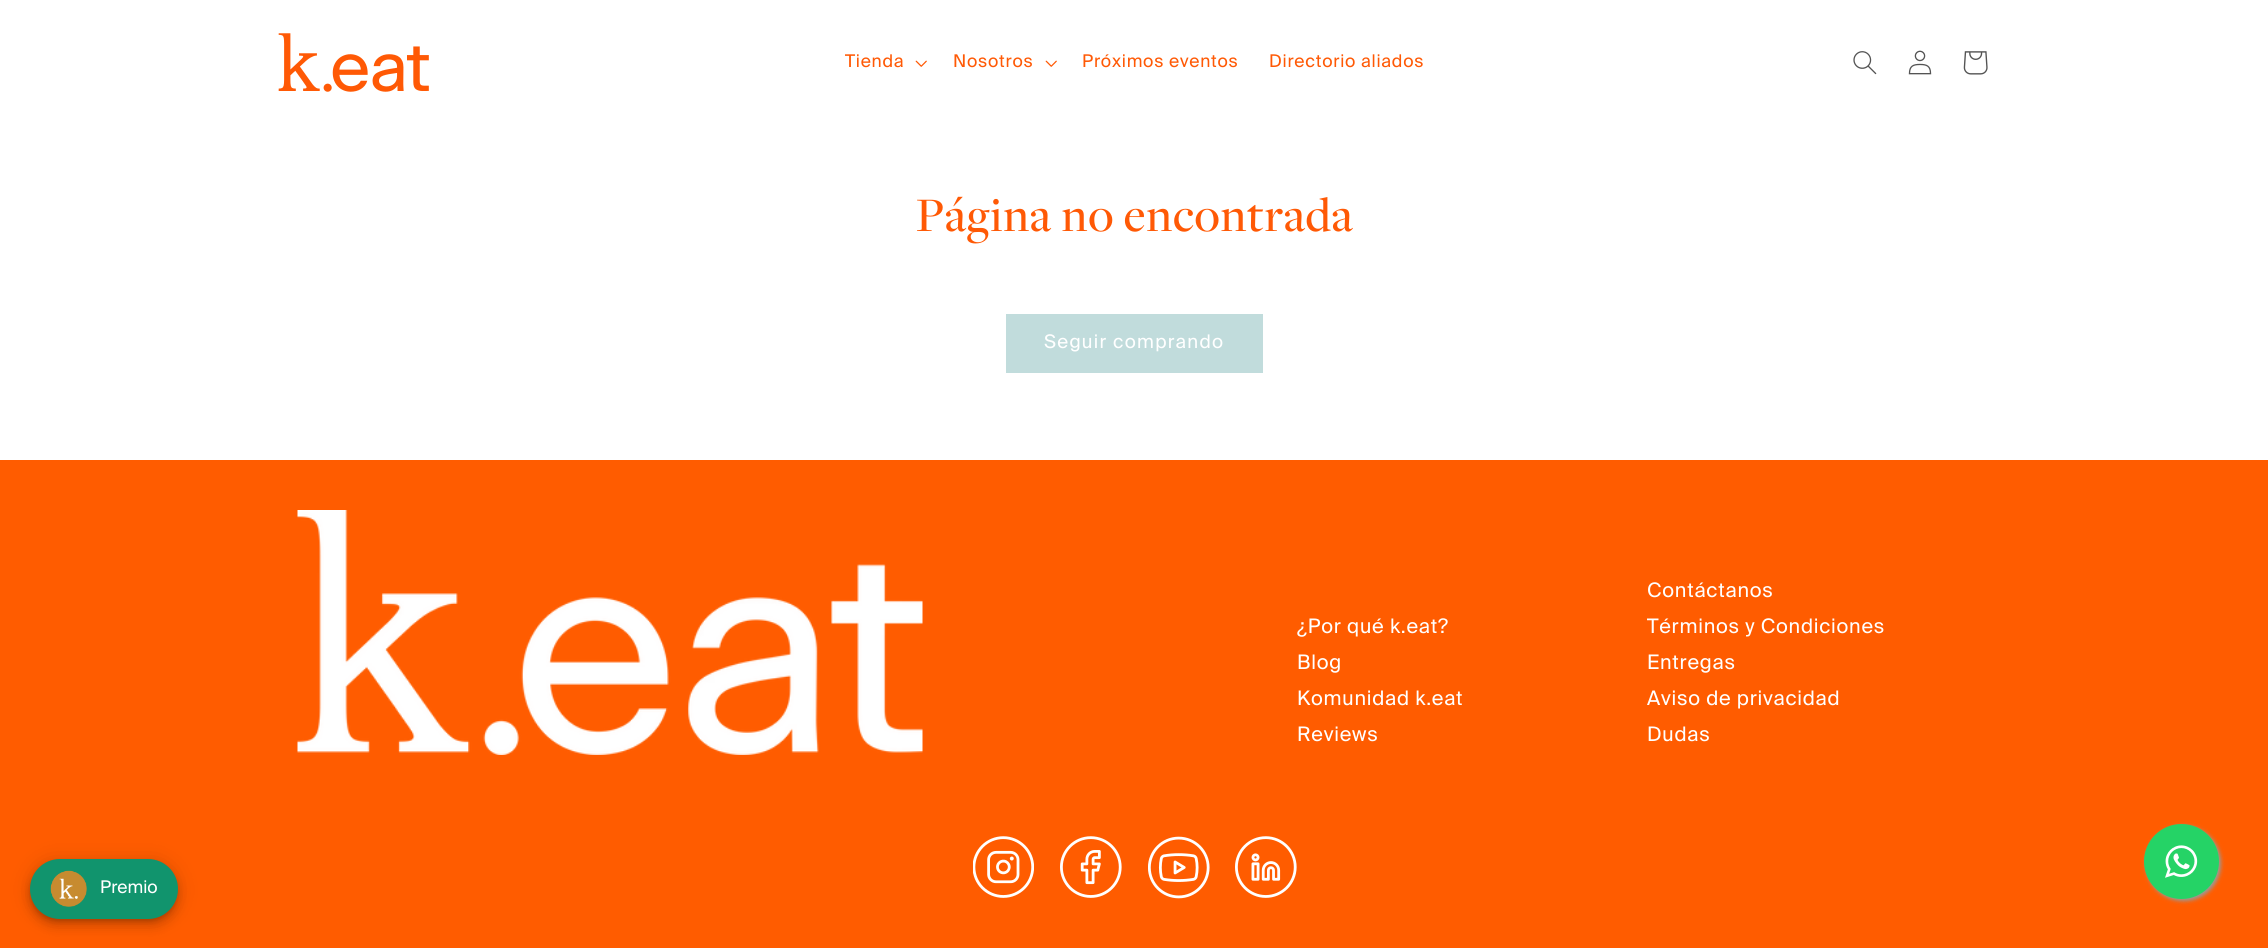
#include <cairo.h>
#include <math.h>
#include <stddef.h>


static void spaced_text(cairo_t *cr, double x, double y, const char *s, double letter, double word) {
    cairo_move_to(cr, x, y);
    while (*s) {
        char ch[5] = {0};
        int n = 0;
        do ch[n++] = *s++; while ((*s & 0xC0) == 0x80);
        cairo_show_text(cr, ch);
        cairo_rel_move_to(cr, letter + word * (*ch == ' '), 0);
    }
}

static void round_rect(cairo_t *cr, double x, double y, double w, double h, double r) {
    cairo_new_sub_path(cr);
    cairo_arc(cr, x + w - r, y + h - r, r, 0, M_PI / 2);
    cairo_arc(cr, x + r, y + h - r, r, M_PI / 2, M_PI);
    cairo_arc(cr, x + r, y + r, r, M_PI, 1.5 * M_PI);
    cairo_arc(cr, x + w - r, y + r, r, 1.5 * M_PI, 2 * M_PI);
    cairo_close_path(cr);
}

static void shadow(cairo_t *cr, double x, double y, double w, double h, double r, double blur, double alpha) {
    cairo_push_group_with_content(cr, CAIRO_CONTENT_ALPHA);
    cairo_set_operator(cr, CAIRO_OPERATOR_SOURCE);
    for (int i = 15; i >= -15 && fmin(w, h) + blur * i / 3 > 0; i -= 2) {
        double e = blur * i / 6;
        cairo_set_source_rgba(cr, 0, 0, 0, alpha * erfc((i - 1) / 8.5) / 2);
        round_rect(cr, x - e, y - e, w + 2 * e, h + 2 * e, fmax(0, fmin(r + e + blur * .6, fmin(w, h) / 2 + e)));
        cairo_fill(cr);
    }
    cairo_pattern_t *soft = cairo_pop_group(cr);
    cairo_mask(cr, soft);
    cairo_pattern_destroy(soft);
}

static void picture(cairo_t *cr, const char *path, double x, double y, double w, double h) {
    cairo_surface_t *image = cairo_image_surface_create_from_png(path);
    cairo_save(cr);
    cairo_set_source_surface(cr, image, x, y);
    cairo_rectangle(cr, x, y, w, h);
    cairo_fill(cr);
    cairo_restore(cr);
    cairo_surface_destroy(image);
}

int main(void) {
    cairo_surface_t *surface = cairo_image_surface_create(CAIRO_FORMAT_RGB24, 2268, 948);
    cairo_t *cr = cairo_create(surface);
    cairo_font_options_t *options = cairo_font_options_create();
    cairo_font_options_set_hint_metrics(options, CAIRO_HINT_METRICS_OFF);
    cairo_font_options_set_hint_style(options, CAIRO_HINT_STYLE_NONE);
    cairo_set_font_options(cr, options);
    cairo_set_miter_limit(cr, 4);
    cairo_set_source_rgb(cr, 1, 1, 1);
    cairo_paint(cr);
    picture(cr, "img1.png", 278, 33, 151, 59);
    cairo_select_font_face(cr, "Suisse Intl", CAIRO_FONT_SLANT_NORMAL, CAIRO_FONT_WEIGHT_NORMAL);
    cairo_set_font_size(cr, 17.5);
    cairo_set_source_rgb(cr, 1, 0.349, 0.02);
    spaced_text(cr, 845, 67, "Tienda", 0.75, 0);
    picture(cr, "img2.png", 915, 60, 12, 7);
    spaced_text(cr, 953, 67, "Nosotros", 0.75, 0);
    picture(cr, "img2.png", 1045, 60, 12, 7);
    spaced_text(cr, 1082, 67, "Próximos eventos", 0.75, 0);
    spaced_text(cr, 1269, 67, "Directorio aliados", 0.75, 0);
    picture(cr, "img3.png", 1853, 51, 24, 24);
    picture(cr, "img4.png", 1908, 50, 24, 25);
    picture(cr, "img5.png", 1963, 51, 25, 24);
    cairo_select_font_face(cr, "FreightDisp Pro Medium", CAIRO_FONT_SLANT_NORMAL, CAIRO_FONT_WEIGHT_NORMAL);
    cairo_set_font_size(cr, 50);
    spaced_text(cr, 916, 231, "Página no encontrada", 0.75, 0);
    cairo_set_source_rgb(cr, 0.757, 0.863, 0.863);
    cairo_rectangle(cr, 1006, 314, 257, 59);
    cairo_fill(cr);
    cairo_select_font_face(cr, "Suisse Intl", CAIRO_FONT_SLANT_NORMAL, CAIRO_FONT_WEIGHT_NORMAL);
    cairo_set_font_size(cr, 18.75);
    cairo_set_source_rgb(cr, 1, 1, 1);
    spaced_text(cr, 1044, 348, "Seguir comprando", 1.25, 0);
    cairo_set_source_rgb(cr, 1, 0.361, 0);
    cairo_rectangle(cr, 0, 460, 2268, 488);
    cairo_fill(cr);
    picture(cr, "img6.png", 297, 510, 626, 245);
    cairo_set_font_size(cr, 20);
    cairo_set_source_rgb(cr, 1, 1, 1);
    spaced_text(cr, 1297, 633, "¿Por qué k.eat?", 0.75, 0);
    spaced_text(cr, 1297, 669, "Blog", 0.75, 0);
    spaced_text(cr, 1297, 705, "Komunidad k.eat", 0.75, 0);
    spaced_text(cr, 1297, 741, "Reviews", 0.75, 0);
    spaced_text(cr, 1647, 597, "Contáctanos", 0.75, 0);
    spaced_text(cr, 1647, 633, "Términos y Condiciones", 0.75, 0);
    spaced_text(cr, 1647, 669, "Entregas", 0.75, 0);
    spaced_text(cr, 1647, 705, "Aviso de privacidad", 0.75, 0);
    spaced_text(cr, 1647, 741, "Dudas", 0.75, 0);
    picture(cr, "img7.png", 973, 836, 61, 62);
    picture(cr, "img8.png", 1060, 836, 62, 62);
    picture(cr, "img9.png", 1148, 836, 62, 63);
    picture(cr, "img10.png", 1235, 836, 62, 62);
    cairo_set_source_rgb(cr, 0, 0, 0);
    shadow(cr, 30, 860, 148, 60, 30, 11, 0.12);
    shadow(cr, 30, 866, 148, 60, 30, 6, 0.14);
    shadow(cr, 31, 864, 145, 57, 28.5, 3, 0.2);
    cairo_set_source_rgb(cr, 0.067, 0.58, 0.427);
    round_rect(cr, 30, 859, 148, 60, 30);
    cairo_fill(cr);
    picture(cr, "img11.png", 50, 870, 37, 37);
    cairo_set_font_size(cr, 17.5);
    cairo_set_source_rgb(cr, 1, 1, 1);
    cairo_move_to(cr, 100, 893);
    cairo_show_text(cr, "Premio");
    cairo_set_source_rgb(cr, 0.6, 0.6, 0.6);
    shadow(cr, 2146, 826, 75, 75, 37.5, 2, 1);
    cairo_set_source_rgb(cr, 0.145, 0.827, 0.4);
    cairo_arc(cr, 2181.5, 861.5, 37.5, 0, 2 * M_PI);
    cairo_fill(cr);
    picture(cr, "img12.png", 2165, 845, 33, 33);
    cairo_surface_write_to_png(surface, "page.png");
    cairo_font_options_destroy(options);
    cairo_destroy(cr);
    cairo_surface_destroy(surface);
    return 0;
}
